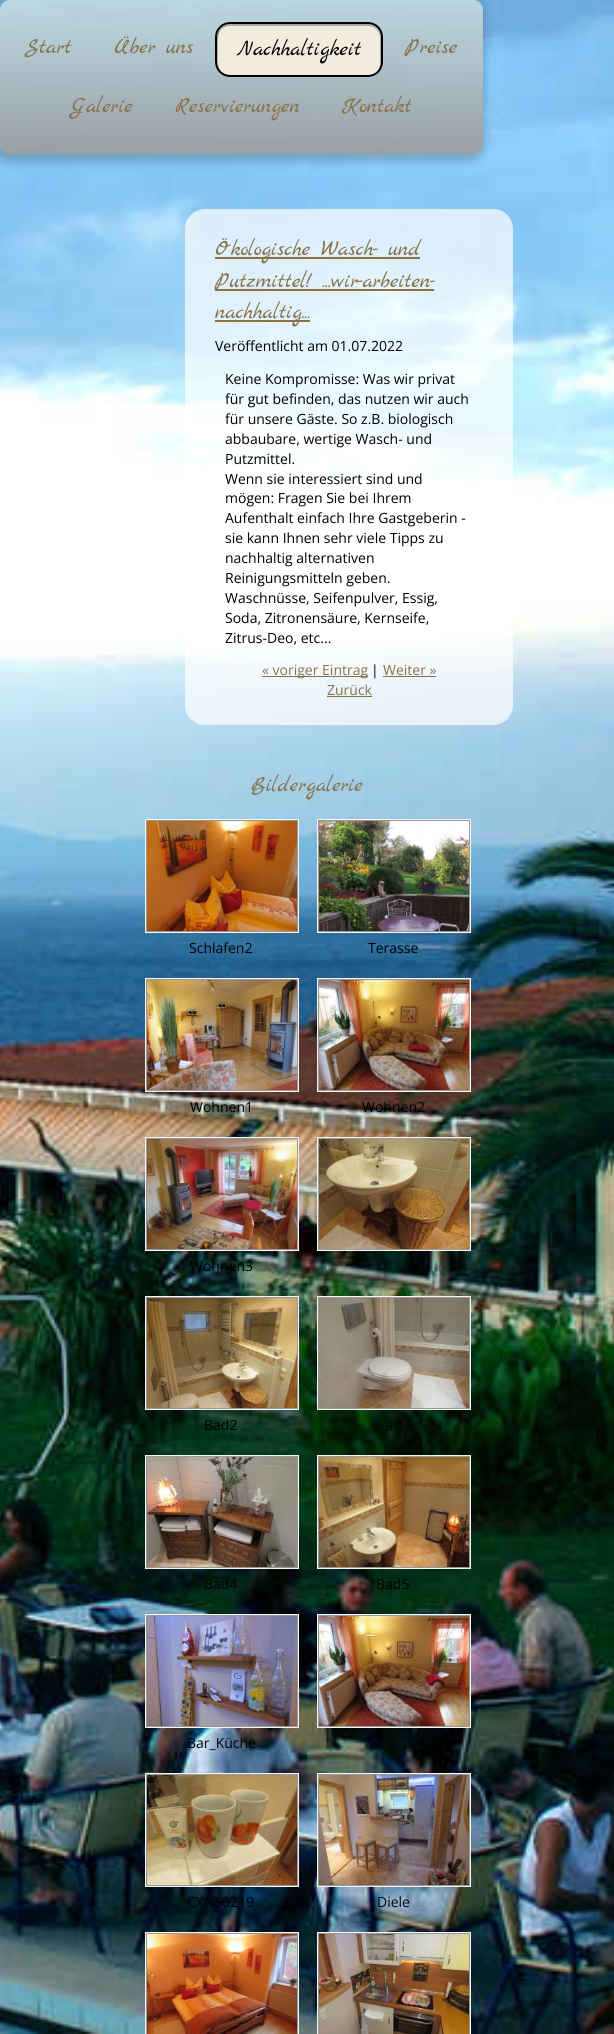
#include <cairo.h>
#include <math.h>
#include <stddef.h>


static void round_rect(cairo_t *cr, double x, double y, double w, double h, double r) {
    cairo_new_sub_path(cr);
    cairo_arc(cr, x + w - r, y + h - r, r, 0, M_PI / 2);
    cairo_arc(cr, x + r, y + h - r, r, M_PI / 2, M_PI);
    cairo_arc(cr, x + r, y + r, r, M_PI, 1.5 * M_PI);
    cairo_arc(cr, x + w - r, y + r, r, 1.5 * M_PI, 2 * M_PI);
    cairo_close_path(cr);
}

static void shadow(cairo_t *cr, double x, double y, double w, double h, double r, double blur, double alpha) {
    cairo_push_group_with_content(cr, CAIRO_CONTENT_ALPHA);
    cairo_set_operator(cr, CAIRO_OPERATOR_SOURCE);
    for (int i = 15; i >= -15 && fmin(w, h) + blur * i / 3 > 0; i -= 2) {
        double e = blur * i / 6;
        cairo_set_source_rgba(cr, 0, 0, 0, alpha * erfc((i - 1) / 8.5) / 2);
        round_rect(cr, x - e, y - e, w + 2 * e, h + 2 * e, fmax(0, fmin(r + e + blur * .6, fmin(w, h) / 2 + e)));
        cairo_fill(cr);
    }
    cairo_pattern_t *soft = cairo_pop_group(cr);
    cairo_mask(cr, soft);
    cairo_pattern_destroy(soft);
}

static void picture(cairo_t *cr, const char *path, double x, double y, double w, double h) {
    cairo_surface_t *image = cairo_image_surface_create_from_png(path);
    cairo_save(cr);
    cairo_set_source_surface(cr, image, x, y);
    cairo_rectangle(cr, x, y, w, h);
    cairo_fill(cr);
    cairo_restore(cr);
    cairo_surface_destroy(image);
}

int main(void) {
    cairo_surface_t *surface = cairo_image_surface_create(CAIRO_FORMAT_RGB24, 614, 2034);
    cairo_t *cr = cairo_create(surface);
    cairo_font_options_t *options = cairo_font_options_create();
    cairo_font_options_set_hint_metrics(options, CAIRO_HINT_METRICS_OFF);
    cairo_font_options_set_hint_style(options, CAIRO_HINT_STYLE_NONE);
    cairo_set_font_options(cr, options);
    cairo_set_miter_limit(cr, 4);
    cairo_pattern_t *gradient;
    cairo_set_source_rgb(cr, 1, 1, 1);
    cairo_paint(cr);
    picture(cr, "img1.png", 0, 0, 614, 2034);
    cairo_save(cr);
    cairo_set_fill_rule(cr, CAIRO_FILL_RULE_EVEN_ODD);
    cairo_new_path(cr);
    cairo_move_to(cr, 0, 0);
    cairo_line_to(cr, 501, 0);
    cairo_line_to(cr, 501, 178);
    cairo_line_to(cr, 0, 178);
    cairo_close_path(cr);
    cairo_move_to(cr, 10, 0);
    cairo_line_to(cr, 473, 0);
    cairo_curve_to(cr, 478.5, 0, 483, 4.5, 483, 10);
    cairo_line_to(cr, 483, 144);
    cairo_curve_to(cr, 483, 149.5, 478.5, 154, 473, 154);
    cairo_line_to(cr, 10, 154);
    cairo_curve_to(cr, 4.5, 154, 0, 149.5, 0, 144);
    cairo_line_to(cr, 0, 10);
    cairo_curve_to(cr, 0, 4.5, 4.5, 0, 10, 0);
    cairo_close_path(cr);
    cairo_clip(cr);
    cairo_set_source_rgb(cr, 0, 0, 0);
    shadow(cr, -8, -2, 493, 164, 15, 5, 0.2);
    cairo_restore(cr);
    gradient = cairo_pattern_create_linear(242, 154, 242, 0);
    cairo_pattern_add_color_stop_rgba(gradient, 0, 0.608, 0.608, 0.608, 0.9);
    cairo_pattern_add_color_stop_rgba(gradient, 1, 0.761, 0.859, 0.886, 0.9);
    cairo_set_source(cr, gradient);
    cairo_pattern_destroy(gradient);
    round_rect(cr, 0, 0, 483, 154, 10);
    cairo_fill(cr);
    cairo_select_font_face(cr, "Marck Script", CAIRO_FONT_SLANT_NORMAL, CAIRO_FONT_WEIGHT_NORMAL);
    cairo_set_font_size(cr, 22);
    cairo_set_source_rgb(cr, 0.537, 0.443, 0.286);
    cairo_move_to(cr, 25, 53);
    cairo_show_text(cr, "Start");
    cairo_move_to(cr, 114, 53);
    cairo_show_text(cr, "Über uns");
    cairo_set_source_rgb(cr, 0.949, 0.922, 0.875);
    round_rect(cr, 215, 22, 168, 55, 15);
    cairo_fill(cr);
    cairo_set_source_rgb(cr, 0.663, 0.647, 0.612);
    cairo_new_path(cr);
    cairo_move_to(cr, 230, 26);
    cairo_line_to(cr, 368, 26);
    cairo_curve_to(cr, 375, 26, 380, 31, 380, 38);
    cairo_line_to(cr, 380, 63);
    cairo_curve_to(cr, 380, 67, 378, 71, 375, 73);
    cairo_curve_to(cr, 379, 70, 381, 67, 381, 62);
    cairo_line_to(cr, 381, 37);
    cairo_curve_to(cr, 381, 30, 375, 24, 368, 24);
    cairo_line_to(cr, 230, 24);
    cairo_curve_to(cr, 223, 24, 217, 30, 217, 37);
    cairo_line_to(cr, 217, 62);
    cairo_curve_to(cr, 217, 67, 219, 70, 223, 73);
    cairo_curve_to(cr, 216, 68, 218, 58, 218, 50);
    cairo_curve_to(cr, 218, 41, 216, 26, 230, 26);
    cairo_close_path(cr);
    cairo_fill(cr);
    round_rect(cr, 216, 23, 166, 53, 14);
    cairo_set_source_rgb(cr, 0, 0, 0);
    cairo_stroke(cr);
    cairo_move_to(cr, 237, 55);
    cairo_show_text(cr, "Nachhaltigkeit");
    cairo_set_source_rgb(cr, 0.537, 0.443, 0.286);
    cairo_move_to(cr, 405, 53);
    cairo_show_text(cr, "Preise");
    cairo_move_to(cr, 71, 112);
    cairo_show_text(cr, "Galerie");
    cairo_move_to(cr, 175, 112);
    cairo_show_text(cr, "Reservierungen");
    cairo_move_to(cr, 342, 112);
    cairo_show_text(cr, "Kontakt");
    cairo_set_source_rgba(cr, 1, 1, 1, 0.7);
    round_rect(cr, 185, 209, 328, 516, 20);
    cairo_fill(cr);
    cairo_set_source_rgb(cr, 0.537, 0.443, 0.286);
    cairo_rectangle(cr, 215, 257, 205, 2);
    cairo_fill(cr);
    cairo_move_to(cr, 215, 255);
    cairo_show_text(cr, "Ökologische Wasch- und");
    cairo_rectangle(cr, 215, 289, 219, 2);
    cairo_fill(cr);
    cairo_move_to(cr, 215, 287);
    cairo_show_text(cr, "Putzmittel! ...wir-arbeiten-");
    cairo_rectangle(cr, 215, 320, 95, 2);
    cairo_fill(cr);
    cairo_move_to(cr, 215, 318);
    cairo_show_text(cr, "nachhaltig...");
    cairo_select_font_face(cr, "Open Sans", CAIRO_FONT_SLANT_NORMAL, CAIRO_FONT_WEIGHT_NORMAL);
    cairo_set_font_size(cr, 14);
    cairo_set_source_rgb(cr, 0, 0, 0);
    cairo_move_to(cr, 215, 351);
    cairo_show_text(cr, "Veröffentlicht am 01.07.2022");
    cairo_move_to(cr, 225, 384);
    cairo_show_text(cr, "Keine Kompromisse: Was wir privat");
    cairo_move_to(cr, 225, 404);
    cairo_show_text(cr, "für gut befinden, das nutzen wir auch");
    cairo_move_to(cr, 225, 424);
    cairo_show_text(cr, "für unsere Gäste. So z.B. biologisch");
    cairo_move_to(cr, 225, 444);
    cairo_show_text(cr, "abbaubare, wertige Wasch- und");
    cairo_move_to(cr, 225, 464);
    cairo_show_text(cr, "Putzmittel.");
    cairo_move_to(cr, 225, 484);
    cairo_show_text(cr, "Wenn sie interessiert sind und");
    cairo_move_to(cr, 225, 503);
    cairo_show_text(cr, "mögen: Fragen Sie bei Ihrem");
    cairo_move_to(cr, 225, 523);
    cairo_show_text(cr, "Aufenthalt einfach Ihre Gastgeberin -");
    cairo_move_to(cr, 225, 543);
    cairo_show_text(cr, "sie kann Ihnen sehr viele Tipps zu");
    cairo_move_to(cr, 225, 563);
    cairo_show_text(cr, "nachhaltig alternativen");
    cairo_move_to(cr, 225, 583);
    cairo_show_text(cr, "Reinigungsmitteln geben.");
    cairo_move_to(cr, 225, 603);
    cairo_show_text(cr, "Waschnüsse, Seifenpulver, Essig,");
    cairo_move_to(cr, 225, 623);
    cairo_show_text(cr, "Soda, Zitronensäure, Kernseife,");
    cairo_move_to(cr, 225, 643);
    cairo_show_text(cr, "Zitrus-Deo, etc...");
    cairo_set_source_rgb(cr, 0.537, 0.443, 0.286);
    cairo_rectangle(cr, 262, 676, 106, 1);
    cairo_fill(cr);
    cairo_move_to(cr, 262, 675);
    cairo_show_text(cr, "« voriger Eintrag");
    cairo_set_source_rgb(cr, 0, 0, 0);
    cairo_move_to(cr, 371, 675);
    cairo_show_text(cr, "|");
    cairo_set_source_rgb(cr, 0.537, 0.443, 0.286);
    cairo_move_to(cr, 383, 675);
    cairo_show_text(cr, "Weiter »");
    cairo_rectangle(cr, 383, 676, 53, 1);
    cairo_fill(cr);
    cairo_move_to(cr, 327, 695);
    cairo_show_text(cr, "Zurück");
    cairo_rectangle(cr, 327, 696, 45, 1);
    cairo_fill(cr);
    cairo_select_font_face(cr, "Marck Script", CAIRO_FONT_SLANT_NORMAL, CAIRO_FONT_WEIGHT_NORMAL);
    cairo_set_font_size(cr, 22);
    cairo_move_to(cr, 251, 791);
    cairo_show_text(cr, "Bildergalerie");
    cairo_rectangle(cr, 145.5, 819.5, 153, 113);
    cairo_set_source_rgb(cr, 0.961, 0.961, 0.961);
    cairo_set_line_width(cr, 1);
    cairo_stroke(cr);
    picture(cr, "img2.png", 147, 821, 150, 110);
    cairo_rectangle(cr, 146.5, 820.5, 151, 111);
    cairo_set_source_rgb(cr, 0.596, 0.596, 0.596);
    cairo_stroke(cr);
    cairo_select_font_face(cr, "Open Sans", CAIRO_FONT_SLANT_NORMAL, CAIRO_FONT_WEIGHT_NORMAL);
    cairo_set_font_size(cr, 14);
    cairo_set_source_rgb(cr, 0, 0, 0);
    cairo_move_to(cr, 189, 953);
    cairo_show_text(cr, "Schlafen2");
    cairo_rectangle(cr, 317.5, 819.5, 153, 113);
    cairo_set_source_rgb(cr, 0.961, 0.961, 0.961);
    cairo_stroke(cr);
    picture(cr, "img3.png", 319, 821, 150, 110);
    cairo_rectangle(cr, 318.5, 820.5, 151, 111);
    cairo_set_source_rgb(cr, 0.596, 0.596, 0.596);
    cairo_stroke(cr);
    cairo_set_source_rgb(cr, 0, 0, 0);
    cairo_move_to(cr, 368, 953);
    cairo_show_text(cr, "Terasse");
    cairo_rectangle(cr, 145.5, 978.5, 153, 113);
    cairo_set_source_rgb(cr, 0.961, 0.961, 0.961);
    cairo_stroke(cr);
    picture(cr, "img4.png", 147, 980, 150, 110);
    cairo_rectangle(cr, 146.5, 979.5, 151, 111);
    cairo_set_source_rgb(cr, 0.596, 0.596, 0.596);
    cairo_stroke(cr);
    cairo_set_source_rgb(cr, 0, 0, 0);
    cairo_move_to(cr, 190, 1112);
    cairo_show_text(cr, "Wohnen1");
    cairo_rectangle(cr, 317.5, 978.5, 153, 113);
    cairo_set_source_rgb(cr, 0.961, 0.961, 0.961);
    cairo_stroke(cr);
    picture(cr, "img5.png", 319, 980, 150, 110);
    cairo_rectangle(cr, 318.5, 979.5, 151, 111);
    cairo_set_source_rgb(cr, 0.596, 0.596, 0.596);
    cairo_stroke(cr);
    cairo_set_source_rgb(cr, 0, 0, 0);
    cairo_move_to(cr, 362, 1112);
    cairo_show_text(cr, "Wohnen2");
    cairo_rectangle(cr, 317.5, 1137.5, 153, 113);
    cairo_set_source_rgb(cr, 0.961, 0.961, 0.961);
    cairo_stroke(cr);
    picture(cr, "img6.png", 319, 1139, 150, 110);
    cairo_rectangle(cr, 318.5, 1138.5, 151, 111);
    cairo_set_source_rgb(cr, 0.596, 0.596, 0.596);
    cairo_stroke(cr);
    cairo_rectangle(cr, 145.5, 1137.5, 153, 113);
    cairo_set_source_rgb(cr, 0.961, 0.961, 0.961);
    cairo_stroke(cr);
    picture(cr, "img7.png", 147, 1139, 150, 110);
    cairo_rectangle(cr, 146.5, 1138.5, 151, 111);
    cairo_set_source_rgb(cr, 0.596, 0.596, 0.596);
    cairo_stroke(cr);
    cairo_set_source_rgb(cr, 0, 0, 0);
    cairo_move_to(cr, 190, 1271);
    cairo_show_text(cr, "Wohnen3");
    cairo_rectangle(cr, 145.5, 1296.5, 153, 113);
    cairo_set_source_rgb(cr, 0.961, 0.961, 0.961);
    cairo_stroke(cr);
    picture(cr, "img8.png", 147, 1298, 150, 110);
    cairo_rectangle(cr, 146.5, 1297.5, 151, 111);
    cairo_set_source_rgb(cr, 0.596, 0.596, 0.596);
    cairo_stroke(cr);
    cairo_set_source_rgb(cr, 0, 0, 0);
    cairo_move_to(cr, 204, 1430);
    cairo_show_text(cr, "Bad2");
    cairo_rectangle(cr, 317.5, 1296.5, 153, 113);
    cairo_set_source_rgb(cr, 0.961, 0.961, 0.961);
    cairo_stroke(cr);
    picture(cr, "img9.png", 319, 1298, 150, 110);
    cairo_rectangle(cr, 318.5, 1297.5, 151, 111);
    cairo_set_source_rgb(cr, 0.596, 0.596, 0.596);
    cairo_stroke(cr);
    cairo_set_source_rgb(cr, 0, 0, 0);
    cairo_move_to(cr, 385, 1430);
    cairo_show_text(cr, "a");
    cairo_rectangle(cr, 145.5, 1455.5, 153, 113);
    cairo_set_source_rgb(cr, 0.961, 0.961, 0.961);
    cairo_stroke(cr);
    picture(cr, "img10.png", 147, 1457, 150, 110);
    cairo_rectangle(cr, 146.5, 1456.5, 151, 111);
    cairo_set_source_rgb(cr, 0.596, 0.596, 0.596);
    cairo_stroke(cr);
    cairo_set_source_rgb(cr, 0, 0, 0);
    cairo_move_to(cr, 204, 1589);
    cairo_show_text(cr, "Bad4");
    cairo_rectangle(cr, 317.5, 1455.5, 153, 113);
    cairo_set_source_rgb(cr, 0.961, 0.961, 0.961);
    cairo_stroke(cr);
    picture(cr, "img11.png", 319, 1457, 150, 110);
    cairo_rectangle(cr, 318.5, 1456.5, 151, 111);
    cairo_set_source_rgb(cr, 0.596, 0.596, 0.596);
    cairo_stroke(cr);
    cairo_set_source_rgb(cr, 0, 0, 0);
    cairo_move_to(cr, 376, 1589);
    cairo_show_text(cr, "Bad5");
    cairo_rectangle(cr, 317.5, 1614.5, 153, 113);
    cairo_set_source_rgb(cr, 0.961, 0.961, 0.961);
    cairo_stroke(cr);
    picture(cr, "img12.png", 319, 1616, 150, 110);
    cairo_rectangle(cr, 318.5, 1615.5, 151, 111);
    cairo_set_source_rgb(cr, 0.596, 0.596, 0.596);
    cairo_stroke(cr);
    cairo_rectangle(cr, 145.5, 1614.5, 153, 113);
    cairo_set_source_rgb(cr, 0.961, 0.961, 0.961);
    cairo_stroke(cr);
    picture(cr, "img13.png", 147, 1616, 150, 110);
    cairo_rectangle(cr, 146.5, 1615.5, 151, 111);
    cairo_set_source_rgb(cr, 0.596, 0.596, 0.596);
    cairo_stroke(cr);
    cairo_set_source_rgb(cr, 0, 0, 0);
    cairo_move_to(cr, 187, 1748);
    cairo_show_text(cr, "Bar_Küche");
    cairo_rectangle(cr, 145.5, 1773.5, 153, 113);
    cairo_set_source_rgb(cr, 0.961, 0.961, 0.961);
    cairo_stroke(cr);
    picture(cr, "img14.png", 147, 1775, 150, 110);
    cairo_rectangle(cr, 146.5, 1774.5, 151, 111);
    cairo_set_source_rgb(cr, 0.596, 0.596, 0.596);
    cairo_stroke(cr);
    cairo_set_source_rgb(cr, 0, 0, 0);
    cairo_move_to(cr, 187, 1907);
    cairo_show_text(cr, "CXNS0219");
    cairo_rectangle(cr, 317.5, 1773.5, 153, 113);
    cairo_set_source_rgb(cr, 0.961, 0.961, 0.961);
    cairo_stroke(cr);
    picture(cr, "img15.png", 319, 1775, 150, 110);
    cairo_rectangle(cr, 318.5, 1774.5, 151, 111);
    cairo_set_source_rgb(cr, 0.596, 0.596, 0.596);
    cairo_stroke(cr);
    cairo_set_source_rgb(cr, 0, 0, 0);
    cairo_move_to(cr, 377, 1907);
    cairo_show_text(cr, "Diele");
    cairo_rectangle(cr, 145.5, 1932.5, 153, 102);
    cairo_set_source_rgb(cr, 0.961, 0.961, 0.961);
    cairo_stroke(cr);
    picture(cr, "img16.png", 147, 1934, 150, 100);
    cairo_rectangle(cr, 146.5, 1933.5, 151, 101);
    cairo_set_source_rgb(cr, 0.596, 0.596, 0.596);
    cairo_stroke(cr);
    cairo_rectangle(cr, 317.5, 1932.5, 153, 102);
    cairo_set_source_rgb(cr, 0.961, 0.961, 0.961);
    cairo_stroke(cr);
    picture(cr, "img17.png", 319, 1934, 150, 100);
    cairo_rectangle(cr, 318.5, 1933.5, 151, 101);
    cairo_set_source_rgb(cr, 0.596, 0.596, 0.596);
    cairo_stroke(cr);
    cairo_surface_write_to_png(surface, "page.png");
    cairo_font_options_destroy(options);
    cairo_destroy(cr);
    cairo_surface_destroy(surface);
    return 0;
}
